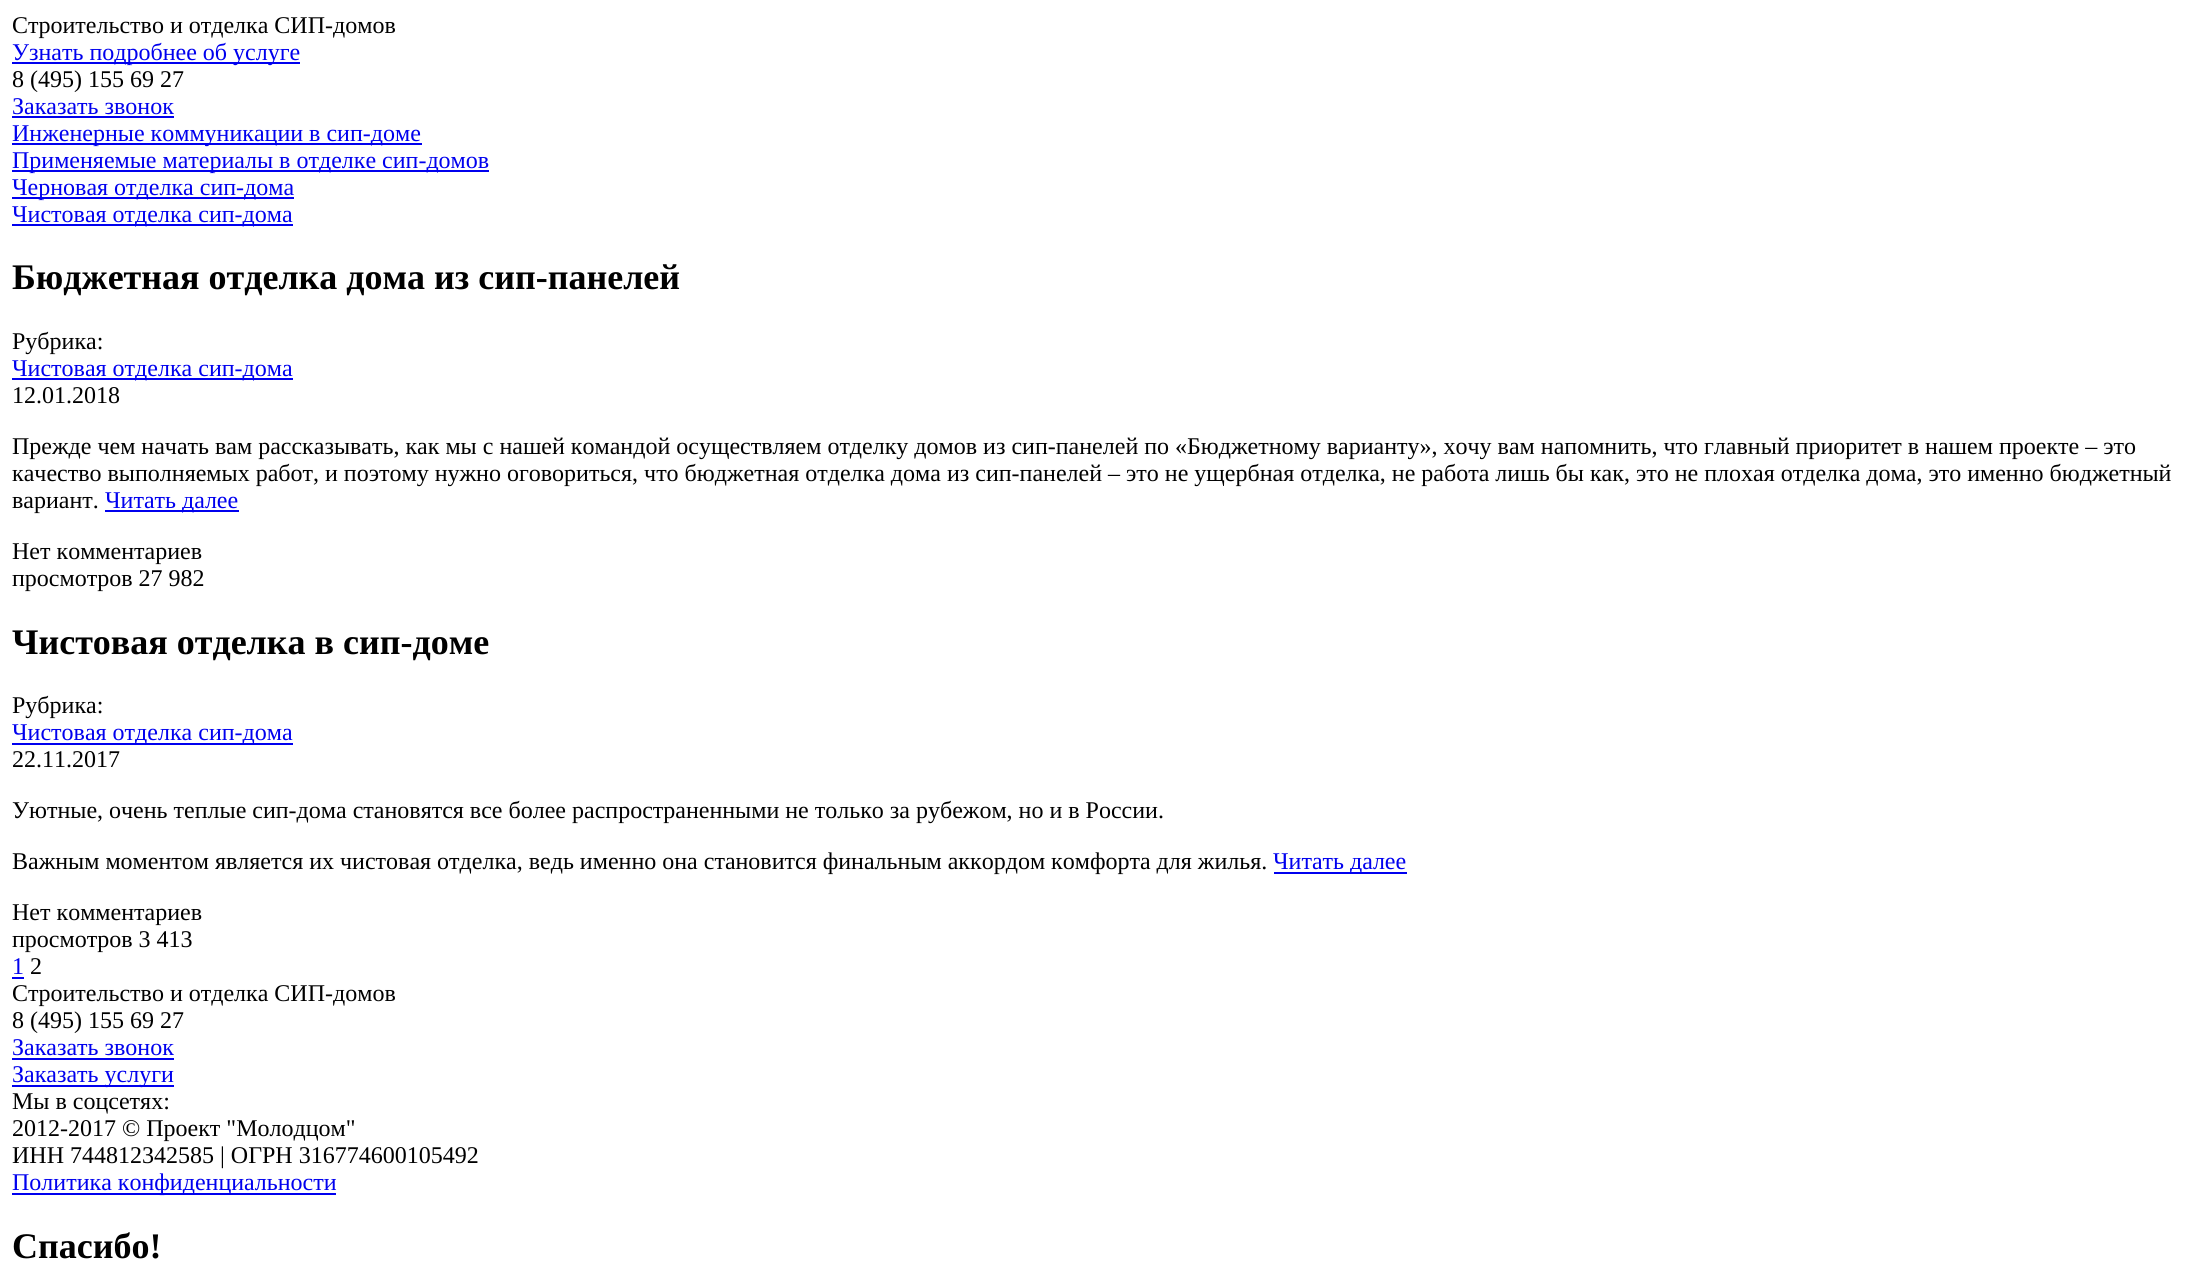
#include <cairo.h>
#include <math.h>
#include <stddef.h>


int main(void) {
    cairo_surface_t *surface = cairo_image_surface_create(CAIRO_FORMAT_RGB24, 2212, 1263);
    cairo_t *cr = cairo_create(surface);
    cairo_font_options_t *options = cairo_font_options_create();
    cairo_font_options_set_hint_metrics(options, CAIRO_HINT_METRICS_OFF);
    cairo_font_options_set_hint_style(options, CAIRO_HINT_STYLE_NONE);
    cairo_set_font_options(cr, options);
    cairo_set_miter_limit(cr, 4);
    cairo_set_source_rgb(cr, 1, 1, 1);
    cairo_paint(cr);
    cairo_select_font_face(cr, "Liberation Serif", CAIRO_FONT_SLANT_NORMAL, CAIRO_FONT_WEIGHT_NORMAL);
    cairo_set_font_size(cr, 24);
    cairo_set_source_rgb(cr, 0, 0, 0);
    cairo_move_to(cr, 12, 33);
    cairo_show_text(cr, "Строительство и отделка СИП-домов");
    cairo_set_source_rgb(cr, 0, 0, 0.933);
    cairo_rectangle(cr, 12, 62, 288, 2);
    cairo_fill(cr);
    cairo_move_to(cr, 12, 60);
    cairo_show_text(cr, "Узнать подробнее об услуге");
    cairo_set_source_rgb(cr, 0, 0, 0);
    cairo_move_to(cr, 12, 87);
    cairo_show_text(cr, "8 (495) 155 69 27");
    cairo_set_source_rgb(cr, 0, 0, 0.933);
    cairo_move_to(cr, 12, 114);
    cairo_show_text(cr, "Заказать звонок");
    cairo_rectangle(cr, 12, 116, 162, 2);
    cairo_fill(cr);
    cairo_rectangle(cr, 12, 143, 410, 2);
    cairo_fill(cr);
    cairo_move_to(cr, 12, 141);
    cairo_show_text(cr, "Инженерные коммуникации в сип-доме");
    cairo_rectangle(cr, 12, 170, 477, 2);
    cairo_fill(cr);
    cairo_move_to(cr, 12, 168);
    cairo_show_text(cr, "Применяемые материалы в отделке сип-домов");
    cairo_rectangle(cr, 12, 197, 282, 2);
    cairo_fill(cr);
    cairo_move_to(cr, 12, 195);
    cairo_show_text(cr, "Черновая отделка сип-дома");
    cairo_rectangle(cr, 12, 224, 281, 2);
    cairo_fill(cr);
    cairo_move_to(cr, 12, 222);
    cairo_show_text(cr, "Чистовая отделка сип-дома");
    cairo_select_font_face(cr, "Liberation Serif", CAIRO_FONT_SLANT_NORMAL, CAIRO_FONT_WEIGHT_BOLD);
    cairo_set_font_size(cr, 36);
    cairo_set_source_rgb(cr, 0, 0, 0);
    cairo_move_to(cr, 12, 289);
    cairo_show_text(cr, "Бюджетная отделка дома из сип-панелей");
    cairo_select_font_face(cr, "Liberation Serif", CAIRO_FONT_SLANT_NORMAL, CAIRO_FONT_WEIGHT_NORMAL);
    cairo_set_font_size(cr, 24);
    cairo_move_to(cr, 12, 349);
    cairo_show_text(cr, "Рубрика:");
    cairo_set_source_rgb(cr, 0, 0, 0.933);
    cairo_rectangle(cr, 12, 378, 281, 2);
    cairo_fill(cr);
    cairo_move_to(cr, 12, 376);
    cairo_show_text(cr, "Чистовая отделка сип-дома");
    cairo_set_source_rgb(cr, 0, 0, 0);
    cairo_move_to(cr, 12, 403);
    cairo_show_text(cr, "12.01.2018");
    cairo_move_to(cr, 12, 454);
    cairo_show_text(cr, "Прежде чем начать вам рассказывать, как мы с нашей командой осуществляем отделку домов из сип-панелей по «Бюджетному варианту», хочу вам напомнить, что главный приоритет в нашем проекте – это");
    cairo_move_to(cr, 12, 481);
    cairo_show_text(cr, "качество выполняемых работ, и поэтому нужно оговориться, что бюджетная отделка дома из сип-панелей – это не ущербная отделка, не работа лишь бы как, это не плохая отделка дома, это именно бюджетный");
    cairo_move_to(cr, 12, 508);
    cairo_show_text(cr, "вариант.");
    cairo_set_source_rgb(cr, 0, 0, 0.933);
    cairo_rectangle(cr, 105, 510, 134, 2);
    cairo_fill(cr);
    cairo_move_to(cr, 105, 508);
    cairo_show_text(cr, "Читать далее");
    cairo_set_source_rgb(cr, 0, 0, 0);
    cairo_move_to(cr, 12, 559);
    cairo_show_text(cr, "Нет комментариев");
    cairo_move_to(cr, 12, 586);
    cairo_show_text(cr, "просмотров 27 982");
    cairo_select_font_face(cr, "Liberation Serif", CAIRO_FONT_SLANT_NORMAL, CAIRO_FONT_WEIGHT_BOLD);
    cairo_set_font_size(cr, 36);
    cairo_move_to(cr, 12, 654);
    cairo_show_text(cr, "Чистовая отделка в сип-доме");
    cairo_select_font_face(cr, "Liberation Serif", CAIRO_FONT_SLANT_NORMAL, CAIRO_FONT_WEIGHT_NORMAL);
    cairo_set_font_size(cr, 24);
    cairo_move_to(cr, 12, 713);
    cairo_show_text(cr, "Рубрика:");
    cairo_set_source_rgb(cr, 0, 0, 0.933);
    cairo_rectangle(cr, 12, 743, 281, 2);
    cairo_fill(cr);
    cairo_move_to(cr, 12, 740);
    cairo_show_text(cr, "Чистовая отделка сип-дома");
    cairo_set_source_rgb(cr, 0, 0, 0);
    cairo_move_to(cr, 12, 767);
    cairo_show_text(cr, "22.11.2017");
    cairo_move_to(cr, 12, 818);
    cairo_show_text(cr, "Уютные, очень теплые сип-дома становятся все более распространенными не только за рубежом, но и в России.");
    cairo_move_to(cr, 12, 869);
    cairo_show_text(cr, "Важным моментом является их чистовая отделка, ведь именно она становится финальным аккордом комфорта для жилья.");
    cairo_set_source_rgb(cr, 0, 0, 0.933);
    cairo_rectangle(cr, 1274, 872, 133, 2);
    cairo_fill(cr);
    cairo_move_to(cr, 1273, 869);
    cairo_show_text(cr, "Читать далее");
    cairo_set_source_rgb(cr, 0, 0, 0);
    cairo_move_to(cr, 12, 920);
    cairo_show_text(cr, "Нет комментариев");
    cairo_move_to(cr, 12, 947);
    cairo_show_text(cr, "просмотров 3 413");
    cairo_set_source_rgb(cr, 0, 0, 0.933);
    cairo_move_to(cr, 12, 974);
    cairo_show_text(cr, "1");
    cairo_rectangle(cr, 12, 977, 12, 2);
    cairo_fill(cr);
    cairo_set_source_rgb(cr, 0, 0, 0);
    cairo_move_to(cr, 30, 974);
    cairo_show_text(cr, "2");
    cairo_move_to(cr, 12, 1001);
    cairo_show_text(cr, "Строительство и отделка СИП-домов");
    cairo_move_to(cr, 12, 1028);
    cairo_show_text(cr, "8 (495) 155 69 27");
    cairo_set_source_rgb(cr, 0, 0, 0.933);
    cairo_move_to(cr, 12, 1055);
    cairo_show_text(cr, "Заказать звонок");
    cairo_rectangle(cr, 12, 1058, 162, 2);
    cairo_fill(cr);
    cairo_rectangle(cr, 12, 1085, 162, 2);
    cairo_fill(cr);
    cairo_move_to(cr, 12, 1082);
    cairo_show_text(cr, "Заказать услуги");
    cairo_set_source_rgb(cr, 0, 0, 0);
    cairo_move_to(cr, 12, 1109);
    cairo_show_text(cr, "Мы в соцсетях:");
    cairo_move_to(cr, 12, 1136);
    cairo_show_text(cr, "2012-2017 © Проект \"Молодцом\"");
    cairo_move_to(cr, 12, 1163);
    cairo_show_text(cr, "ИНН 744812342585 | ОГРН 316774600105492");
    cairo_set_source_rgb(cr, 0, 0, 0.933);
    cairo_rectangle(cr, 12, 1193, 324, 2);
    cairo_fill(cr);
    cairo_move_to(cr, 12, 1190);
    cairo_show_text(cr, "Политика конфиденциальности");
    cairo_select_font_face(cr, "Liberation Serif", CAIRO_FONT_SLANT_NORMAL, CAIRO_FONT_WEIGHT_BOLD);
    cairo_set_font_size(cr, 36);
    cairo_set_source_rgb(cr, 0, 0, 0);
    cairo_move_to(cr, 12, 1258);
    cairo_show_text(cr, "Спасибо!");
    cairo_surface_write_to_png(surface, "page.png");
    cairo_font_options_destroy(options);
    cairo_destroy(cr);
    cairo_surface_destroy(surface);
    return 0;
}
